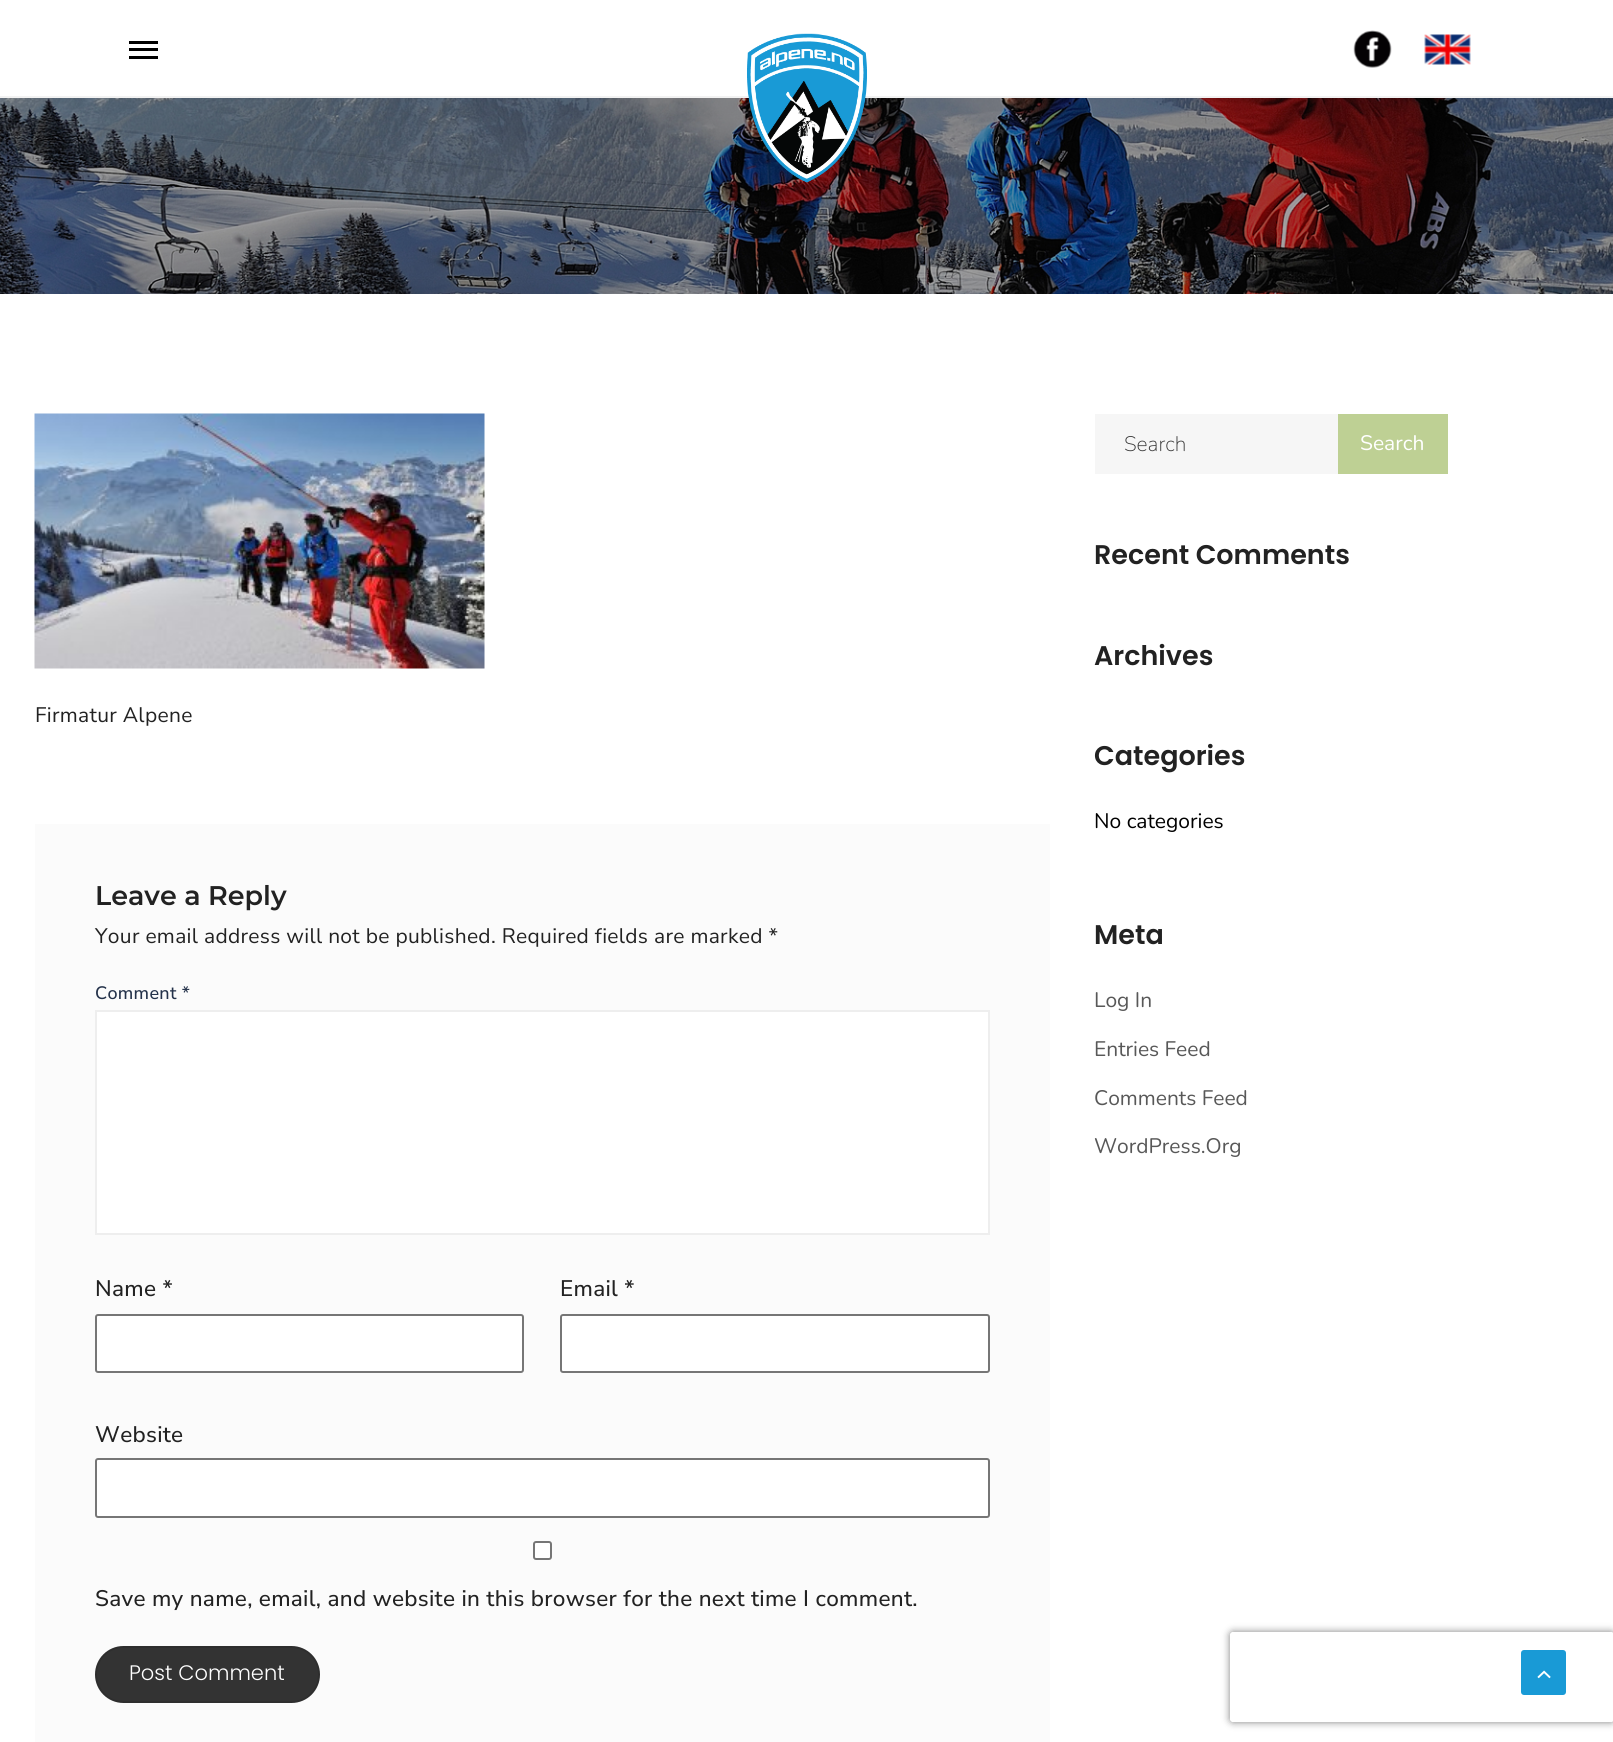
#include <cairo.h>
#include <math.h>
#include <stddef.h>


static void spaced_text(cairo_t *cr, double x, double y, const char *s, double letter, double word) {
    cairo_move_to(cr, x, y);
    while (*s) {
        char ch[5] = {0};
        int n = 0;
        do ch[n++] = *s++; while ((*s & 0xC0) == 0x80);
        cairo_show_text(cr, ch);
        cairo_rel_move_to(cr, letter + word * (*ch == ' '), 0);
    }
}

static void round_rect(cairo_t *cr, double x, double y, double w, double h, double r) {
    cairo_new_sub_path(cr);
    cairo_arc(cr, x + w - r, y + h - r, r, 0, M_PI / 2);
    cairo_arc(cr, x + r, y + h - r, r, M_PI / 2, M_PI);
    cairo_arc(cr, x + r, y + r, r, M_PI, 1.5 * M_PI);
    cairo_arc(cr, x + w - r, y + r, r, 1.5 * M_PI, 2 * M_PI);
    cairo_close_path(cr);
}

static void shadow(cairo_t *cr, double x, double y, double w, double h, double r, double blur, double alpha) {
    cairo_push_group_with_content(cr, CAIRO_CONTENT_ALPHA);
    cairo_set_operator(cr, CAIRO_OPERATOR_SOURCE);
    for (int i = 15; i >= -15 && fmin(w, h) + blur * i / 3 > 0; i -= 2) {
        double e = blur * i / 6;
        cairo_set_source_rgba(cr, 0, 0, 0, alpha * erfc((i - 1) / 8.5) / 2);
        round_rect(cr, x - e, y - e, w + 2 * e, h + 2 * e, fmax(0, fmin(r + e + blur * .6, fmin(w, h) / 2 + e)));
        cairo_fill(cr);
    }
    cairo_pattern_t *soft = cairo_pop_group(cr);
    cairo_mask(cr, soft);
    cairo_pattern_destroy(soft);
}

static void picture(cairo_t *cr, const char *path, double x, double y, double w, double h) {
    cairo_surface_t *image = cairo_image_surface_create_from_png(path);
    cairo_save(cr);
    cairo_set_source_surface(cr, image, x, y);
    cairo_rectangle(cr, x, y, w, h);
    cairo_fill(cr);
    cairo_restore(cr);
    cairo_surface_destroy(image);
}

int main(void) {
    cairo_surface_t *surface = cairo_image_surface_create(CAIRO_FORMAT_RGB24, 1613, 1742);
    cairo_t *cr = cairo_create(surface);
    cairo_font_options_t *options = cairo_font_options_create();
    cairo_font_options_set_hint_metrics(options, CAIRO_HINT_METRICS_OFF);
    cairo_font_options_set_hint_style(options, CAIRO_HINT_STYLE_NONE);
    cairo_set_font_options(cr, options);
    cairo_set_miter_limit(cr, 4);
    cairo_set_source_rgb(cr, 1, 1, 1);
    cairo_paint(cr);
    cairo_set_source_rgb(cr, 0.949, 0.949, 0.949);
    cairo_rectangle(cr, 0, 96, 1613, 2);
    cairo_fill(cr);
    cairo_set_source_rgb(cr, 0, 0, 0);
    cairo_rectangle(cr, 129, 41, 29, 3);
    cairo_fill(cr);
    cairo_rectangle(cr, 129, 48, 29, 3);
    cairo_fill(cr);
    cairo_rectangle(cr, 129, 56, 29, 3);
    cairo_fill(cr);
    picture(cr, "img4.png", 0, 98, 1613, 196);
    picture(cr, "img1.png", 747, 33, 120, 150);
    picture(cr, "img2.png", 1353, 30, 39, 38);
    picture(cr, "img3.png", 1424, 34, 47, 31);
    picture(cr, "img5.png", 34, 413, 451, 256);
    cairo_select_font_face(cr, "Nunito Sans", CAIRO_FONT_SLANT_NORMAL, CAIRO_FONT_WEIGHT_NORMAL);
    cairo_set_font_size(cr, 21);
    cairo_set_source_rgb(cr, 0.133, 0.133, 0.133);
    spaced_text(cr, 35, 722, "Firmatur Alpene", 0.3, 0);
    cairo_set_source_rgb(cr, 0.984, 0.984, 0.984);
    cairo_rectangle(cr, 35, 824, 1015, 918);
    cairo_fill(cr);
    cairo_select_font_face(cr, "Montserrat SemiBold", CAIRO_FONT_SLANT_NORMAL, CAIRO_FONT_WEIGHT_NORMAL);
    cairo_set_font_size(cr, 27);
    cairo_set_source_rgb(cr, 0.133, 0.133, 0.133);
    cairo_move_to(cr, 95, 905);
    cairo_show_text(cr, "Leave a Reply");
    cairo_select_font_face(cr, "Nunito Sans", CAIRO_FONT_SLANT_NORMAL, CAIRO_FONT_WEIGHT_NORMAL);
    cairo_set_font_size(cr, 21);
    spaced_text(cr, 95, 943, "Your email address will not be published. Required fields are marked *", 0.3, 0);
    cairo_select_font_face(cr, "Nunito Sans Medium", CAIRO_FONT_SLANT_NORMAL, CAIRO_FONT_WEIGHT_NORMAL);
    cairo_set_font_size(cr, 18);
    cairo_set_source_rgb(cr, 0.141, 0.196, 0.29);
    spaced_text(cr, 95, 999, "Comment *", 0.3, 0);
    cairo_set_source_rgb(cr, 1, 1, 1);
    cairo_rectangle(cr, 96, 1011, 893, 223);
    cairo_fill_preserve(cr);
    cairo_set_source_rgb(cr, 0.933, 0.933, 0.933);
    cairo_stroke(cr);
    cairo_set_font_size(cr, 22.5);
    cairo_set_source_rgb(cr, 0.133, 0.133, 0.133);
    spaced_text(cr, 95, 1296, "Name *", 0.3, 0);
    cairo_set_source_rgb(cr, 1, 1, 1);
    round_rect(cr, 96, 1315, 427, 57, 2);
    cairo_fill_preserve(cr);
    cairo_set_source_rgb(cr, 0.463, 0.463, 0.463);
    cairo_stroke(cr);
    cairo_set_source_rgb(cr, 0.133, 0.133, 0.133);
    spaced_text(cr, 560, 1296, "Email *", 0.3, 0);
    cairo_set_source_rgb(cr, 1, 1, 1);
    round_rect(cr, 561, 1315, 428, 57, 2);
    cairo_fill_preserve(cr);
    cairo_set_source_rgb(cr, 0.463, 0.463, 0.463);
    cairo_stroke(cr);
    cairo_set_source_rgb(cr, 0.133, 0.133, 0.133);
    spaced_text(cr, 95, 1442, "Website", 0.3, 0);
    cairo_set_source_rgb(cr, 1, 1, 1);
    round_rect(cr, 96, 1459, 893, 58, 2);
    cairo_fill_preserve(cr);
    cairo_set_source_rgb(cr, 0.463, 0.463, 0.463);
    cairo_stroke(cr);
    cairo_set_source_rgb(cr, 1, 1, 1);
    round_rect(cr, 534, 1542, 17, 17, 2);
    cairo_fill_preserve(cr);
    cairo_set_source_rgb(cr, 0.463, 0.463, 0.463);
    cairo_stroke(cr);
    cairo_set_source_rgb(cr, 0.133, 0.133, 0.133);
    spaced_text(cr, 95, 1606, "Save my name, email, and website in this browser for the next time I comment.", 0.3, 0);
    cairo_set_source_rgb(cr, 0.2, 0.2, 0.2);
    round_rect(cr, 95, 1646, 225, 57, 28.5);
    cairo_fill(cr);
    round_rect(cr, 96, 1647, 223, 55, 27.5);
    cairo_set_source_rgba(cr, 0, 0, 0, 0.1);
    cairo_stroke(cr);
    cairo_select_font_face(cr, "Poppins Light", CAIRO_FONT_SLANT_NORMAL, CAIRO_FONT_WEIGHT_NORMAL);
    cairo_set_font_size(cr, 21);
    cairo_set_source_rgb(cr, 1, 1, 1);
    cairo_move_to(cr, 129, 1680);
    cairo_show_text(cr, "Post Comment");
    cairo_set_source_rgb(cr, 0.961, 0.961, 0.961);
    cairo_rectangle(cr, 1095, 414, 243, 60);
    cairo_fill(cr);
    cairo_select_font_face(cr, "Nunito ExtraLight", CAIRO_FONT_SLANT_NORMAL, CAIRO_FONT_WEIGHT_NORMAL);
    cairo_set_source_rgb(cr, 0.2, 0.2, 0.2);
    cairo_move_to(cr, 1124, 451);
    cairo_show_text(cr, "Search");
    cairo_set_source_rgb(cr, 0.745, 0.816, 0.58);
    cairo_rectangle(cr, 1338, 414, 110, 60);
    cairo_fill(cr);
    cairo_select_font_face(cr, "Nunito", CAIRO_FONT_SLANT_NORMAL, CAIRO_FONT_WEIGHT_NORMAL);
    cairo_set_source_rgb(cr, 1, 1, 1);
    cairo_move_to(cr, 1360, 450);
    cairo_show_text(cr, "Search");
    cairo_select_font_face(cr, "Poppins SemiBold", CAIRO_FONT_SLANT_NORMAL, CAIRO_FONT_WEIGHT_NORMAL);
    cairo_set_font_size(cr, 27);
    cairo_set_source_rgb(cr, 0.133, 0.133, 0.133);
    cairo_move_to(cr, 1094, 564);
    cairo_show_text(cr, "Recent Comments");
    cairo_move_to(cr, 1094, 665);
    cairo_show_text(cr, "Archives");
    cairo_move_to(cr, 1094, 765);
    cairo_show_text(cr, "Categories");
    cairo_select_font_face(cr, "Nunito", CAIRO_FONT_SLANT_NORMAL, CAIRO_FONT_WEIGHT_NORMAL);
    cairo_set_font_size(cr, 21);
    cairo_set_source_rgb(cr, 0, 0, 0);
    cairo_move_to(cr, 1094, 828);
    cairo_show_text(cr, "No categories");
    cairo_select_font_face(cr, "Poppins SemiBold", CAIRO_FONT_SLANT_NORMAL, CAIRO_FONT_WEIGHT_NORMAL);
    cairo_set_font_size(cr, 27);
    cairo_set_source_rgb(cr, 0.133, 0.133, 0.133);
    cairo_move_to(cr, 1094, 944);
    cairo_show_text(cr, "Meta");
    cairo_select_font_face(cr, "Nunito", CAIRO_FONT_SLANT_NORMAL, CAIRO_FONT_WEIGHT_NORMAL);
    cairo_set_font_size(cr, 21);
    cairo_set_source_rgb(cr, 0.345, 0.345, 0.345);
    cairo_move_to(cr, 1094, 1007);
    cairo_show_text(cr, "Log In");
    cairo_move_to(cr, 1094, 1056);
    cairo_show_text(cr, "Entries Feed");
    cairo_move_to(cr, 1094, 1105);
    cairo_show_text(cr, "Comments Feed");
    cairo_move_to(cr, 1094, 1153);
    cairo_show_text(cr, "WordPress.Org");
    cairo_save(cr);
    cairo_set_fill_rule(cr, CAIRO_FILL_RULE_EVEN_ODD);
    cairo_new_path(cr);
    cairo_move_to(cr, 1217, 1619);
    cairo_line_to(cr, 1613, 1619);
    cairo_line_to(cr, 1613, 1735);
    cairo_line_to(cr, 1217, 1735);
    cairo_close_path(cr);
    cairo_move_to(cr, 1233, 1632);
    cairo_line_to(cr, 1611, 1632);
    cairo_curve_to(cr, 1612.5, 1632, 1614, 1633.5, 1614, 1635);
    cairo_line_to(cr, 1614, 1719);
    cairo_curve_to(cr, 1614, 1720.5, 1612.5, 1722, 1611, 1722);
    cairo_line_to(cr, 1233, 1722);
    cairo_curve_to(cr, 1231.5, 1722, 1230, 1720.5, 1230, 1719);
    cairo_line_to(cr, 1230, 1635);
    cairo_curve_to(cr, 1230, 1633.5, 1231.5, 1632, 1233, 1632);
    cairo_close_path(cr);
    cairo_clip(cr);
    cairo_set_source_rgb(cr, 0.502, 0.502, 0.502);
    shadow(cr, 1230, 1632, 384, 90, 3, 4, 1);
    cairo_restore(cr);
    cairo_set_source_rgb(cr, 0.098, 0.604, 0.839);
    round_rect(cr, 1521, 1650, 45, 45, 3);
    cairo_fill(cr);
    picture(cr, "img6.png", 1537, 1670, 14, 9);
    cairo_surface_write_to_png(surface, "page.png");
    cairo_font_options_destroy(options);
    cairo_destroy(cr);
    cairo_surface_destroy(surface);
    return 0;
}
